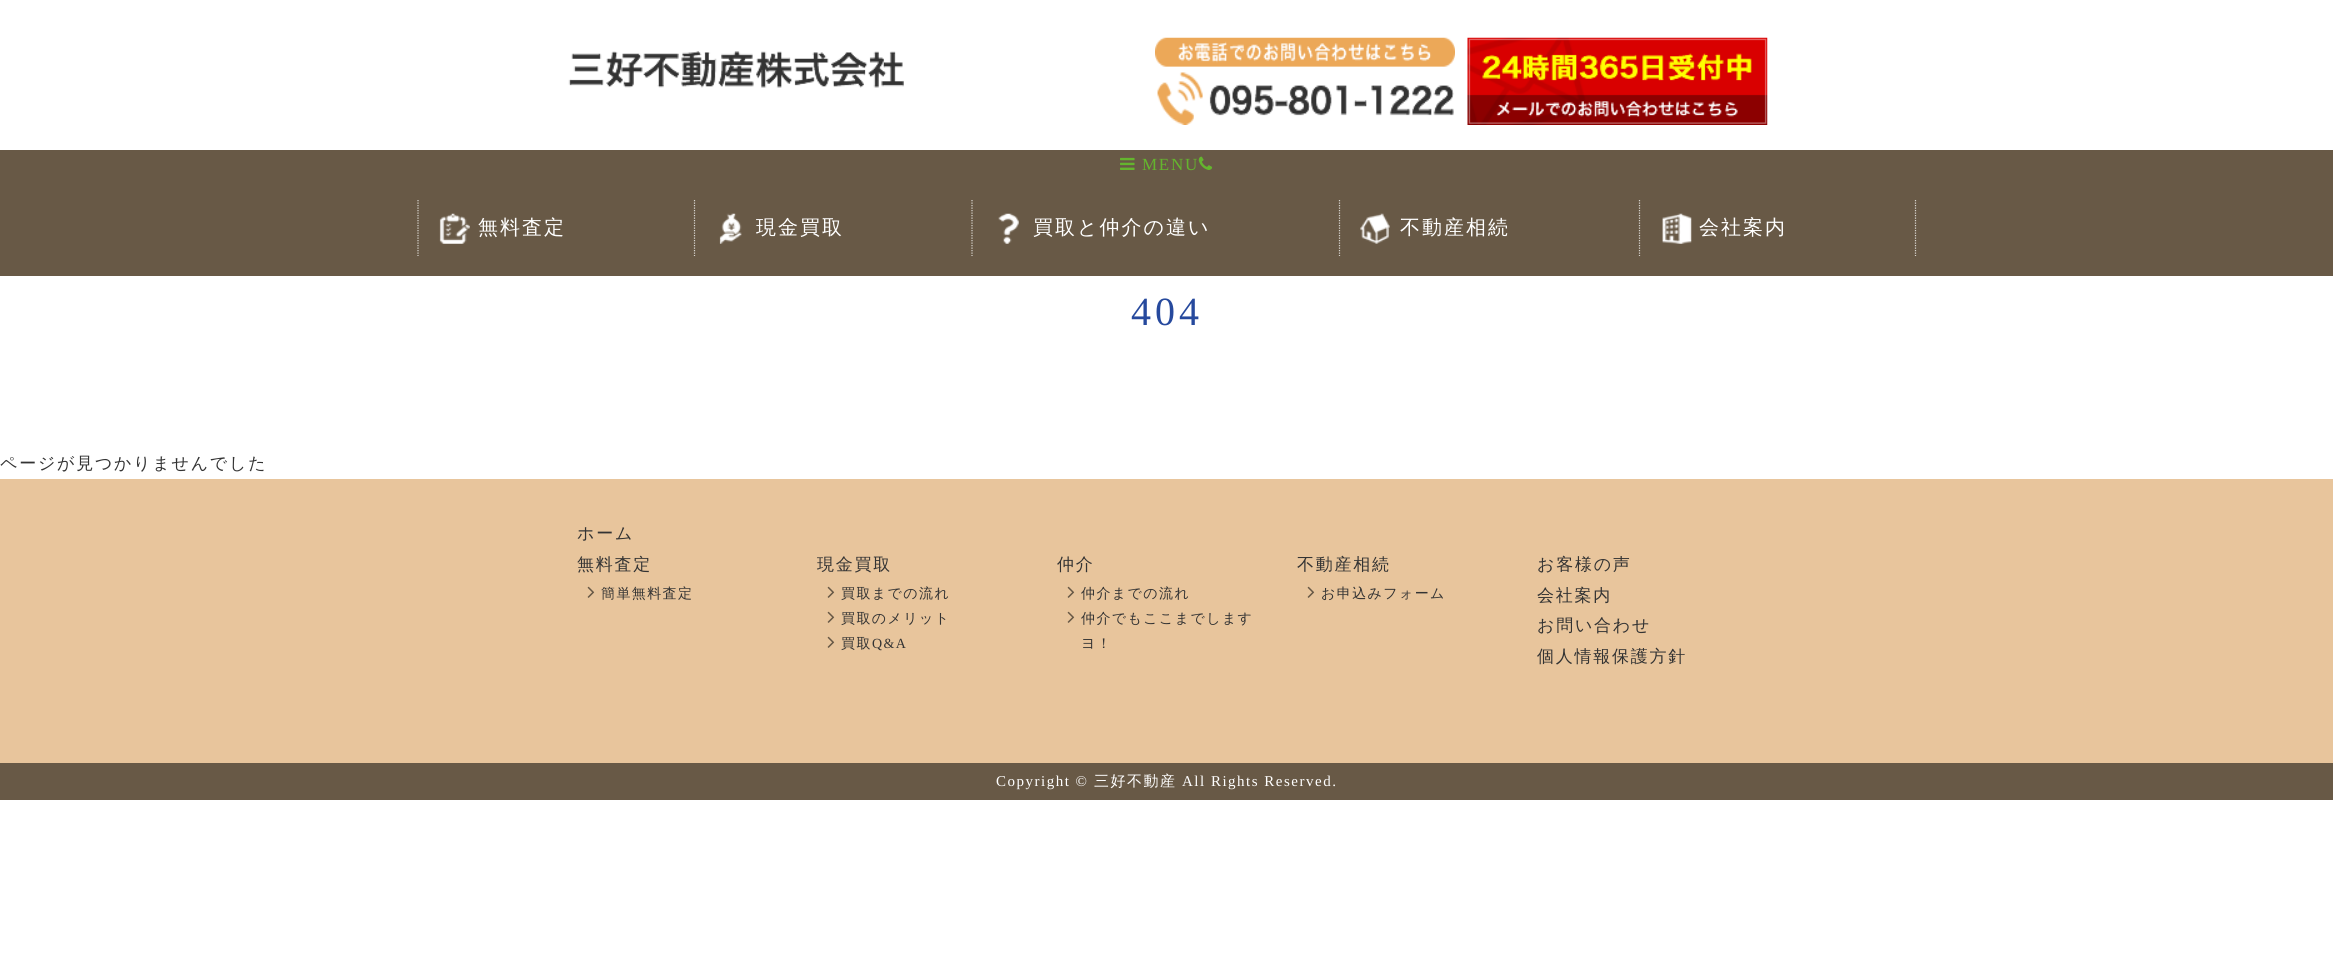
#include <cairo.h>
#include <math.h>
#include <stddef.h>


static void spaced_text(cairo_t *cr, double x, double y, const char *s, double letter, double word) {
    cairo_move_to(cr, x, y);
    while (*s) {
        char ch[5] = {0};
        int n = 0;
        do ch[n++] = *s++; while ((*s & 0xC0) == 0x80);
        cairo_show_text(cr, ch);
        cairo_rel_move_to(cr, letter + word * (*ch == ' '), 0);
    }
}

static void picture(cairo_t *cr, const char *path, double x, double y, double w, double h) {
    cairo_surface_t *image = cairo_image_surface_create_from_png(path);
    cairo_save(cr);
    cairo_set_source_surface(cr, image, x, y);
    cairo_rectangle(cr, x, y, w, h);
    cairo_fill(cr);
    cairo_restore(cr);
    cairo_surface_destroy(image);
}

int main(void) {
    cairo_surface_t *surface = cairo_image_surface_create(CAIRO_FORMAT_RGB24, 2333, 963);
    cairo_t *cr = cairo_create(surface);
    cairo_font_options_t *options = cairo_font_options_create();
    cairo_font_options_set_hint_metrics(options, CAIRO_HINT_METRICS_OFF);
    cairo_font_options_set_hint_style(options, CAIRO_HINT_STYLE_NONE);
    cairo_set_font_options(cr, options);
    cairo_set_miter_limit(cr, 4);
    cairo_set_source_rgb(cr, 1, 1, 1);
    cairo_paint(cr);
    picture(cr, "img1.png", 568, 51, 336, 37);
    picture(cr, "img2.png", 1155, 37, 300, 88);
    picture(cr, "img3.png", 1467, 37, 301, 88);
    cairo_set_source_rgb(cr, 0.408, 0.349, 0.275);
    cairo_rectangle(cr, 0, 150, 2333, 126);
    cairo_fill(cr);
    picture(cr, "img4.png", 1120, 157, 15, 13);
    cairo_select_font_face(cr, "Liberation Serif", CAIRO_FONT_SLANT_NORMAL, CAIRO_FONT_WEIGHT_NORMAL);
    cairo_set_font_size(cr, 17);
    cairo_set_source_rgb(cr, 0.392, 0.71, 0.18);
    spaced_text(cr, 1142, 170, "MENU", 1.75, 0);
    picture(cr, "img5.png", 1198, 156, 15, 14);
    cairo_new_path(cr);
    cairo_move_to(cr, 694.5, 200);
    cairo_line_to(cr, 694.5, 256);
    cairo_set_source_rgb(cr, 0.851, 0.839, 0.82);
    cairo_set_line_width(cr, 1.2);
    cairo_set_dash(cr, (double[]){1.25, 1.25}, 2, 0);
    cairo_stroke(cr);
    cairo_new_path(cr);
    cairo_move_to(cr, 418, 200);
    cairo_line_to(cr, 418, 256);
    cairo_stroke(cr);
    picture(cr, "img6.png", 439, 213, 31, 31);
    cairo_select_font_face(cr, "WenQuanYi Zen Hei Medium", CAIRO_FONT_SLANT_NORMAL, CAIRO_FONT_WEIGHT_NORMAL);
    cairo_set_font_size(cr, 20);
    cairo_set_source_rgb(cr, 1, 1, 1);
    spaced_text(cr, 478, 234, "無料査定", 2, 0);
    cairo_new_path(cr);
    cairo_move_to(cr, 972, 200);
    cairo_line_to(cr, 972, 256);
    cairo_set_source_rgb(cr, 0.851, 0.839, 0.82);
    cairo_stroke(cr);
    picture(cr, "img7.png", 719, 213, 23, 31);
    cairo_set_source_rgb(cr, 1, 1, 1);
    spaced_text(cr, 756, 234, "現金買取", 2, 0);
    cairo_new_path(cr);
    cairo_move_to(cr, 1339.5, 200);
    cairo_line_to(cr, 1339.5, 256);
    cairo_set_source_rgb(cr, 0.851, 0.839, 0.82);
    cairo_stroke(cr);
    picture(cr, "img8.png", 998, 213, 21, 31);
    cairo_set_source_rgb(cr, 1, 1, 1);
    spaced_text(cr, 1033, 234, "買取と仲介の違い", 2, 0);
    cairo_new_path(cr);
    cairo_move_to(cr, 1639.5, 200);
    cairo_line_to(cr, 1639.5, 256);
    cairo_set_source_rgb(cr, 0.851, 0.839, 0.82);
    cairo_stroke(cr);
    picture(cr, "img9.png", 1360, 213, 30, 31);
    cairo_set_source_rgb(cr, 1, 1, 1);
    spaced_text(cr, 1400, 234, "不動産相続", 2, 0);
    cairo_new_path(cr);
    cairo_move_to(cr, 1915.5, 200);
    cairo_line_to(cr, 1915.5, 256);
    cairo_set_source_rgb(cr, 0.851, 0.839, 0.82);
    cairo_stroke(cr);
    picture(cr, "img10.png", 1662, 213, 30, 31);
    cairo_set_source_rgb(cr, 1, 1, 1);
    spaced_text(cr, 1699, 234, "会社案内", 2, 0);
    cairo_select_font_face(cr, "Liberation Serif", CAIRO_FONT_SLANT_NORMAL, CAIRO_FONT_WEIGHT_NORMAL);
    cairo_set_font_size(cr, 40);
    cairo_set_source_rgb(cr, 0.149, 0.286, 0.616);
    spaced_text(cr, 1131, 325, "404", 4, 0);
    cairo_select_font_face(cr, "WenQuanYi Zen Hei Medium", CAIRO_FONT_SLANT_NORMAL, CAIRO_FONT_WEIGHT_NORMAL);
    cairo_set_font_size(cr, 17);
    cairo_set_source_rgb(cr, 0.2, 0.2, 0.2);
    spaced_text(cr, 0, 469, "ページが見つかりませんでした", 1.75, 0);
    cairo_set_source_rgb(cr, 0.91, 0.773, 0.612);
    cairo_rectangle(cr, 0, 479, 2333, 284);
    cairo_fill(cr);
    cairo_set_source_rgb(cr, 0.2, 0.2, 0.2);
    spaced_text(cr, 577, 539, "ホーム", 1.75, 0);
    spaced_text(cr, 577, 570, "無料査定", 1.75, 0);
    picture(cr, "img11.png", 587, 586, 8, 12);
    cairo_set_font_size(cr, 14);
    spaced_text(cr, 601, 598, "簡単無料査定", 1.4, 0);
    cairo_set_font_size(cr, 17);
    spaced_text(cr, 817, 570, "現金買取", 1.75, 0);
    picture(cr, "img11.png", 827, 586, 8, 12);
    cairo_set_font_size(cr, 14);
    spaced_text(cr, 841, 598, "買取までの流れ", 1.4, 0);
    picture(cr, "img11.png", 827, 611, 8, 12);
    spaced_text(cr, 841, 623, "買取のメリット", 1.4, 0);
    picture(cr, "img11.png", 827, 636, 8, 12);
    spaced_text(cr, 841, 648, "買取", 1.4, 0);
    cairo_select_font_face(cr, "Liberation Serif", CAIRO_FONT_SLANT_NORMAL, CAIRO_FONT_WEIGHT_NORMAL);
    spaced_text(cr, 872, 648, "Q&A", 1.4, 0);
    cairo_select_font_face(cr, "WenQuanYi Zen Hei Medium", CAIRO_FONT_SLANT_NORMAL, CAIRO_FONT_WEIGHT_NORMAL);
    cairo_set_font_size(cr, 17);
    spaced_text(cr, 1057, 570, "仲介", 1.75, 0);
    picture(cr, "img11.png", 1067, 586, 8, 12);
    cairo_set_font_size(cr, 14);
    spaced_text(cr, 1081, 598, "仲介までの流れ", 1.4, 0);
    picture(cr, "img11.png", 1067, 611, 8, 12);
    spaced_text(cr, 1081, 623, "仲介でもここまでします", 1.4, 0);
    spaced_text(cr, 1081, 648, "ヨ！", 1.4, 0);
    cairo_set_font_size(cr, 17);
    spaced_text(cr, 1297, 570, "不動産相続", 1.75, 0);
    picture(cr, "img11.png", 1307, 586, 8, 12);
    cairo_set_font_size(cr, 14);
    spaced_text(cr, 1321, 598, "お申込みフォーム", 1.4, 0);
    cairo_set_font_size(cr, 17);
    spaced_text(cr, 1537, 570, "お客様の声", 1.75, 0);
    spaced_text(cr, 1537, 601, "会社案内", 1.75, 0);
    spaced_text(cr, 1537, 631, "お問い合わせ", 1.75, 0);
    spaced_text(cr, 1537, 662, "個人情報保護方針", 1.75, 0);
    cairo_set_source_rgb(cr, 0.408, 0.349, 0.275);
    cairo_rectangle(cr, 0, 763, 2333, 37);
    cairo_fill(cr);
    cairo_select_font_face(cr, "Liberation Serif", CAIRO_FONT_SLANT_NORMAL, CAIRO_FONT_WEIGHT_NORMAL);
    cairo_set_font_size(cr, 15);
    cairo_set_source_rgb(cr, 1, 1, 1);
    spaced_text(cr, 996, 786, "Copyright ©", 1.5, 0);
    cairo_select_font_face(cr, "WenQuanYi Zen Hei Medium", CAIRO_FONT_SLANT_NORMAL, CAIRO_FONT_WEIGHT_NORMAL);
    spaced_text(cr, 1094, 786, "三好不動産", 1.5, 0);
    cairo_select_font_face(cr, "Liberation Serif", CAIRO_FONT_SLANT_NORMAL, CAIRO_FONT_WEIGHT_NORMAL);
    spaced_text(cr, 1182, 786, "All Rights Reserved.", 1.5, 0);
    cairo_surface_write_to_png(surface, "page.png");
    cairo_font_options_destroy(options);
    cairo_destroy(cr);
    cairo_surface_destroy(surface);
    return 0;
}
